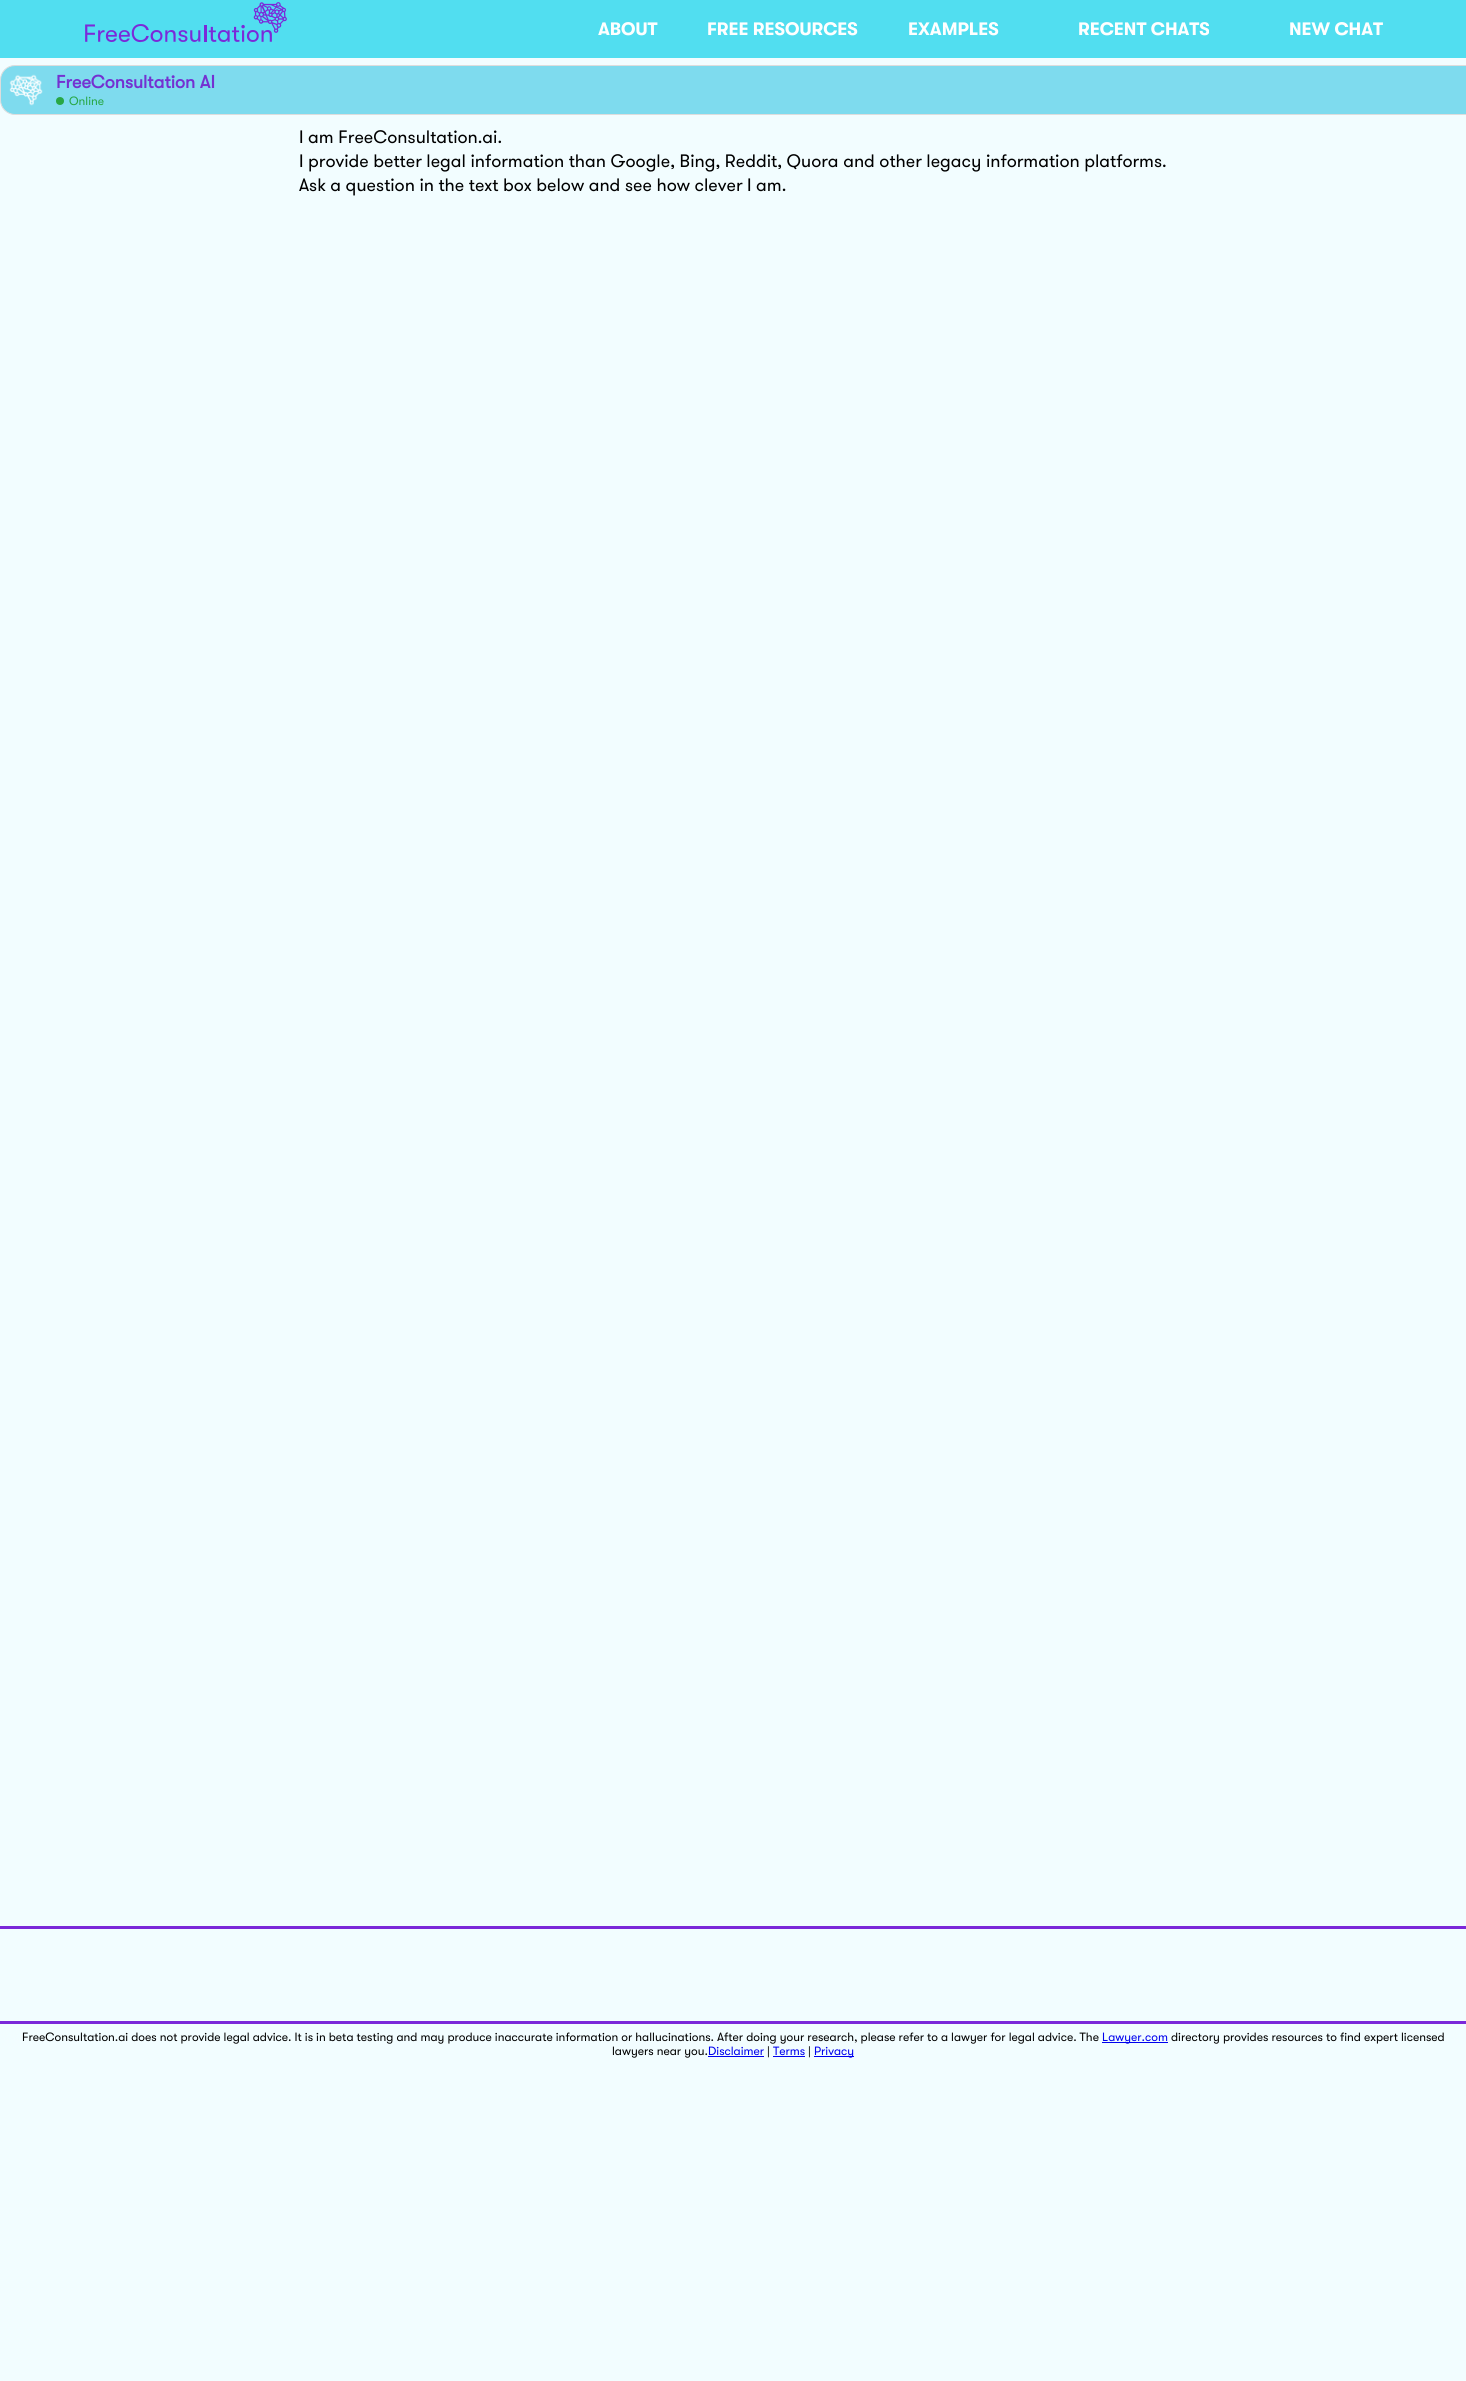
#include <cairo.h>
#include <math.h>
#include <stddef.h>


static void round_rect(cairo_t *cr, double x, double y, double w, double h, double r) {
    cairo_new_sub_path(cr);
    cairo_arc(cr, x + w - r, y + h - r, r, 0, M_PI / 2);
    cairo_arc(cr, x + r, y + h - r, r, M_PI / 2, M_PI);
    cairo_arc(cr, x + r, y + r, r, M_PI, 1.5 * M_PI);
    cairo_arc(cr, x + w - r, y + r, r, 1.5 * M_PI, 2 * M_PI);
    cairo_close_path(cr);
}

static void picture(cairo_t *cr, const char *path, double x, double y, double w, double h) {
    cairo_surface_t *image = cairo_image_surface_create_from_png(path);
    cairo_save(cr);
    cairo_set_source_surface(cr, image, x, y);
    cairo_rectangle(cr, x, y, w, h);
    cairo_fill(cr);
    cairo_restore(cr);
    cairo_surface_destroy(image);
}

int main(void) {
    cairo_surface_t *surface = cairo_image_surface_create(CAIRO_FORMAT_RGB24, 1466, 2381);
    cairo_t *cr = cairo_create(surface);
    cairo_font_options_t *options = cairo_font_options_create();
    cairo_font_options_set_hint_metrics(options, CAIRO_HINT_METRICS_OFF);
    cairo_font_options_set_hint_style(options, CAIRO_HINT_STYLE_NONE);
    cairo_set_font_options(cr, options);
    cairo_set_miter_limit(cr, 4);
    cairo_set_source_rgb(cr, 0.949, 0.992, 1);
    cairo_paint(cr);
    cairo_set_source_rgb(cr, 0.318, 0.871, 0.941);
    cairo_rectangle(cr, 0, 0, 1466, 58);
    cairo_fill(cr);
    picture(cr, "img1.png", 85, 2, 202, 41);
    cairo_select_font_face(cr, "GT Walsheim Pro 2", CAIRO_FONT_SLANT_NORMAL, CAIRO_FONT_WEIGHT_BOLD);
    cairo_set_font_size(cr, 18);
    cairo_set_source_rgb(cr, 1, 1, 1);
    cairo_move_to(cr, 598, 35);
    cairo_show_text(cr, "ABOUT");
    cairo_move_to(cr, 707, 35);
    cairo_show_text(cr, "FREE RESOURCES");
    cairo_move_to(cr, 908, 35);
    cairo_show_text(cr, "EXAMPLES");
    cairo_move_to(cr, 1078, 35);
    cairo_show_text(cr, "RECENT CHATS");
    cairo_move_to(cr, 1289, 35);
    cairo_show_text(cr, "NEW CHAT");
    cairo_set_source_rgb(cr, 0.494, 0.859, 0.933);
    round_rect(cr, 0.5, 65.5, 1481, 49, 14.5);
    cairo_fill_preserve(cr);
    cairo_set_source_rgb(cr, 0.867, 0.867, 0.867);
    cairo_set_line_width(cr, 1);
    cairo_stroke(cr);
    picture(cr, "img2.png", 9, 74, 34, 32);
    cairo_select_font_face(cr, "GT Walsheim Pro", CAIRO_FONT_SLANT_NORMAL, CAIRO_FONT_WEIGHT_BOLD);
    cairo_set_source_rgb(cr, 0.455, 0.192, 0.82);
    cairo_move_to(cr, 56, 88);
    cairo_show_text(cr, "FreeConsultation AI");
    cairo_set_source_rgb(cr, 0.157, 0.655, 0.271);
    cairo_new_path(cr);
    cairo_arc(cr, 60, 101, 4, 0, 2 * M_PI);
    cairo_fill(cr);
    cairo_select_font_face(cr, "GT Walsheim Pro", CAIRO_FONT_SLANT_NORMAL, CAIRO_FONT_WEIGHT_NORMAL);
    cairo_set_font_size(cr, 12);
    cairo_move_to(cr, 69, 105);
    cairo_show_text(cr, "Online");
    cairo_select_font_face(cr, "GT Walsheim Pro 2", CAIRO_FONT_SLANT_NORMAL, CAIRO_FONT_WEIGHT_NORMAL);
    cairo_set_font_size(cr, 18);
    cairo_set_source_rgb(cr, 0, 0, 0);
    cairo_move_to(cr, 299, 143);
    cairo_show_text(cr, "I am FreeConsultation.ai.");
    cairo_move_to(cr, 299, 167);
    cairo_show_text(cr, "I provide better legal information than Google, Bing, Reddit, Quora and other legacy information platforms.");
    cairo_move_to(cr, 299, 191);
    cairo_show_text(cr, "Ask a question in the text box below and see how clever I am.");
    cairo_rectangle(cr, -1.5, 1927.5, 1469, 95);
    cairo_set_source_rgb(cr, 0.482, 0.161, 0.851);
    cairo_set_line_width(cr, 3);
    cairo_stroke(cr);
    cairo_select_font_face(cr, "GT Walsheim Pro", CAIRO_FONT_SLANT_NORMAL, CAIRO_FONT_WEIGHT_NORMAL);
    cairo_set_font_size(cr, 12);
    cairo_set_source_rgb(cr, 0, 0, 0);
    cairo_move_to(cr, 22, 2041);
    cairo_show_text(cr, "FreeConsultation.ai does not provide legal advice. It is in beta testing and may produce inaccurate information or hallucinations. After doing your research, please refer to a lawyer for legal advice. The");
    cairo_set_source_rgb(cr, 0, 0, 0.933);
    cairo_rectangle(cr, 1102, 2042, 66, 1);
    cairo_fill(cr);
    cairo_move_to(cr, 1102, 2041);
    cairo_show_text(cr, "Lawyer.com");
    cairo_set_source_rgb(cr, 0, 0, 0);
    cairo_move_to(cr, 1171, 2041);
    cairo_show_text(cr, "directory provides resources to find expert licensed");
    cairo_move_to(cr, 612, 2055);
    cairo_show_text(cr, "lawyers near you.");
    cairo_set_source_rgb(cr, 0, 0, 0.933);
    cairo_move_to(cr, 708, 2055);
    cairo_show_text(cr, "Disclaimer");
    cairo_rectangle(cr, 708, 2056, 56, 1);
    cairo_fill(cr);
    cairo_set_source_rgb(cr, 0, 0, 0);
    cairo_move_to(cr, 767, 2055);
    cairo_show_text(cr, "|");
    cairo_set_source_rgb(cr, 0, 0, 0.933);
    cairo_move_to(cr, 773, 2055);
    cairo_show_text(cr, "Terms");
    cairo_rectangle(cr, 773, 2056, 32, 1);
    cairo_fill(cr);
    cairo_set_source_rgb(cr, 0, 0, 0);
    cairo_move_to(cr, 808, 2055);
    cairo_show_text(cr, "|");
    cairo_set_source_rgb(cr, 0, 0, 0.933);
    cairo_rectangle(cr, 814, 2056, 40, 1);
    cairo_fill(cr);
    cairo_move_to(cr, 814, 2055);
    cairo_show_text(cr, "Privacy");
    cairo_surface_write_to_png(surface, "page.png");
    cairo_font_options_destroy(options);
    cairo_destroy(cr);
    cairo_surface_destroy(surface);
    return 0;
}
